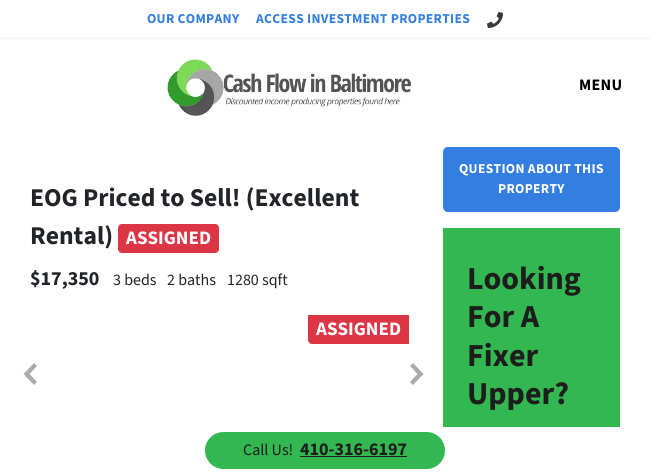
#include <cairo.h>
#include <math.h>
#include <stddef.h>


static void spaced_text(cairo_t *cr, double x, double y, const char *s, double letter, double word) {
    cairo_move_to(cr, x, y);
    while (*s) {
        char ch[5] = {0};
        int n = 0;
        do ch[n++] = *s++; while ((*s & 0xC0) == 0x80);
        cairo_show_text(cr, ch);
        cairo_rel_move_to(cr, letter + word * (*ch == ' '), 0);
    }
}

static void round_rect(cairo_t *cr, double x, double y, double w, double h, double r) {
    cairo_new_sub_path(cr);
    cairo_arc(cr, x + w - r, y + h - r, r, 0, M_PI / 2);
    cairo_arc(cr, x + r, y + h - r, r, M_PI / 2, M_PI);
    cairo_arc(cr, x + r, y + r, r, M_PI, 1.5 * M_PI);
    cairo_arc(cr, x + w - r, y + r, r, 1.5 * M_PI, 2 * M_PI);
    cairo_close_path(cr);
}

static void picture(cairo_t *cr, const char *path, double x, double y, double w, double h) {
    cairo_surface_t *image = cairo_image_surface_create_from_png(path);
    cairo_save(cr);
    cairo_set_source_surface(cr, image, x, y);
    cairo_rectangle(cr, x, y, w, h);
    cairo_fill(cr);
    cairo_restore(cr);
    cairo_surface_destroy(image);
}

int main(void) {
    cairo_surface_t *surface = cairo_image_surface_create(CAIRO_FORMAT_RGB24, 650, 474);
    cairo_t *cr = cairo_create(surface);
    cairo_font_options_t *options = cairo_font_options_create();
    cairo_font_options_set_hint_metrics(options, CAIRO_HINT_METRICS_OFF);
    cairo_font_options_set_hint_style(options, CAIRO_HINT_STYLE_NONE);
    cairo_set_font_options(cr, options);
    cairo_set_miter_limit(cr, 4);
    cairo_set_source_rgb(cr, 1, 1, 1);
    cairo_paint(cr);
    cairo_set_source_rgb(cr, 0.945, 0.945, 0.945);
    cairo_rectangle(cr, 0, 38, 650, 1);
    cairo_fill(cr);
    cairo_select_font_face(cr, "Source Sans 3", CAIRO_FONT_SLANT_NORMAL, CAIRO_FONT_WEIGHT_BOLD);
    cairo_set_font_size(cr, 13.6);
    cairo_set_source_rgb(cr, 0.2, 0.494, 0.878);
    spaced_text(cr, 147, 23, "OUR COMPANY", 0.3, 0);
    spaced_text(cr, 256, 23, "ACCESS INVESTMENT PROPERTIES", 0.3, 0);
    picture(cr, "img1.png", 487, 12, 16, 16);
    picture(cr, "img2.png", 166, 58, 246, 58);
    cairo_set_font_size(cr, 16);
    cairo_set_source_rgb(cr, 0, 0, 0);
    spaced_text(cr, 579, 90, "MENU", 0.3, 0);
    cairo_set_font_size(cr, 25.6);
    cairo_set_source_rgb(cr, 0.129, 0.145, 0.161);
    cairo_move_to(cr, 30, 206);
    cairo_show_text(cr, "EOG Priced to Sell! (Excellent");
    cairo_move_to(cr, 30, 244);
    cairo_show_text(cr, "Rental)");
    cairo_set_source_rgb(cr, 0.863, 0.208, 0.271);
    round_rect(cr, 118, 224, 101, 29, 4);
    cairo_fill(cr);
    cairo_set_font_size(cr, 19);
    cairo_set_source_rgb(cr, 1, 1, 1);
    cairo_move_to(cr, 126, 244);
    cairo_show_text(cr, "ASSIGNED");
    cairo_set_font_size(cr, 20);
    cairo_set_source_rgb(cr, 0.129, 0.145, 0.161);
    cairo_move_to(cr, 30, 285);
    cairo_show_text(cr, "$17,350");
    cairo_select_font_face(cr, "Source Sans 3", CAIRO_FONT_SLANT_NORMAL, CAIRO_FONT_WEIGHT_NORMAL);
    cairo_set_font_size(cr, 16);
    cairo_move_to(cr, 113, 285);
    cairo_show_text(cr, "3 beds");
    cairo_move_to(cr, 167, 285);
    cairo_show_text(cr, "2 baths");
    cairo_move_to(cr, 227, 285);
    cairo_show_text(cr, "1280 sqft");
    cairo_set_source_rgb(cr, 0.863, 0.208, 0.271);
    cairo_new_path(cr);
    cairo_move_to(cr, 308, 315);
    cairo_line_to(cr, 409, 315);
    cairo_line_to(cr, 409, 344);
    cairo_line_to(cr, 312, 344);
    cairo_curve_to(cr, 310, 344, 308, 342, 308, 340);
    cairo_close_path(cr);
    cairo_fill(cr);
    cairo_select_font_face(cr, "Source Sans 3", CAIRO_FONT_SLANT_NORMAL, CAIRO_FONT_WEIGHT_BOLD);
    cairo_set_font_size(cr, 19);
    cairo_set_source_rgb(cr, 1, 1, 1);
    cairo_move_to(cr, 316, 335);
    cairo_show_text(cr, "ASSIGNED");
    cairo_set_source_rgb(cr, 0.667, 0.667, 0.667);
    cairo_new_path(cr);
    cairo_move_to(cr, 34, 363);
    cairo_line_to(cr, 37, 366);
    cairo_line_to(cr, 29.5, 374);
    cairo_line_to(cr, 37, 382);
    cairo_line_to(cr, 34, 385);
    cairo_line_to(cr, 23.5, 374);
    cairo_close_path(cr);
    cairo_fill(cr);
    cairo_new_path(cr);
    cairo_move_to(cr, 413, 363);
    cairo_line_to(cr, 423.5, 374);
    cairo_line_to(cr, 413, 385);
    cairo_line_to(cr, 410, 382);
    cairo_line_to(cr, 417.5, 374);
    cairo_line_to(cr, 410, 366);
    cairo_close_path(cr);
    cairo_fill(cr);
    cairo_set_source_rgb(cr, 0.2, 0.494, 0.878);
    round_rect(cr, 443.5, 147.5, 176, 64, 4.5);
    cairo_fill_preserve(cr);
    cairo_set_line_width(cr, 1);
    cairo_stroke(cr);
    cairo_set_font_size(cr, 13.6);
    cairo_set_source_rgb(cr, 1, 1, 1);
    spaced_text(cr, 459, 173, "QUESTION ABOUT THIS", 0.3, 0);
    spaced_text(cr, 498, 193, "PROPERTY", 0.3, 0);
    cairo_set_source_rgb(cr, 0.2, 0.718, 0.314);
    cairo_rectangle(cr, 443, 228, 177, 199);
    cairo_fill(cr);
    cairo_set_font_size(cr, 32);
    cairo_set_source_rgb(cr, 0.114, 0.114, 0.114);
    cairo_move_to(cr, 467, 289);
    cairo_show_text(cr, "Looking");
    cairo_move_to(cr, 467, 327);
    cairo_show_text(cr, "For A");
    cairo_move_to(cr, 467, 366);
    cairo_show_text(cr, "Fixer");
    cairo_move_to(cr, 467, 404);
    cairo_show_text(cr, "Upper?");
    cairo_set_source_rgb(cr, 0.2, 0.718, 0.314);
    round_rect(cr, 205, 432, 240, 37, 18.5);
    cairo_fill(cr);
    cairo_select_font_face(cr, "Source Sans 3", CAIRO_FONT_SLANT_NORMAL, CAIRO_FONT_WEIGHT_NORMAL);
    cairo_set_font_size(cr, 16);
    cairo_set_source_rgb(cr, 0.114, 0.114, 0.114);
    cairo_move_to(cr, 243, 455);
    cairo_show_text(cr, "Call Us!");
    cairo_select_font_face(cr, "Source Sans 3", CAIRO_FONT_SLANT_NORMAL, CAIRO_FONT_WEIGHT_BOLD);
    cairo_set_font_size(cr, 18);
    cairo_move_to(cr, 300, 455);
    cairo_show_text(cr, "410-316-6197");
    cairo_rectangle(cr, 300, 456, 107, 1);
    cairo_fill(cr);
    cairo_surface_write_to_png(surface, "page.png");
    cairo_font_options_destroy(options);
    cairo_destroy(cr);
    cairo_surface_destroy(surface);
    return 0;
}
